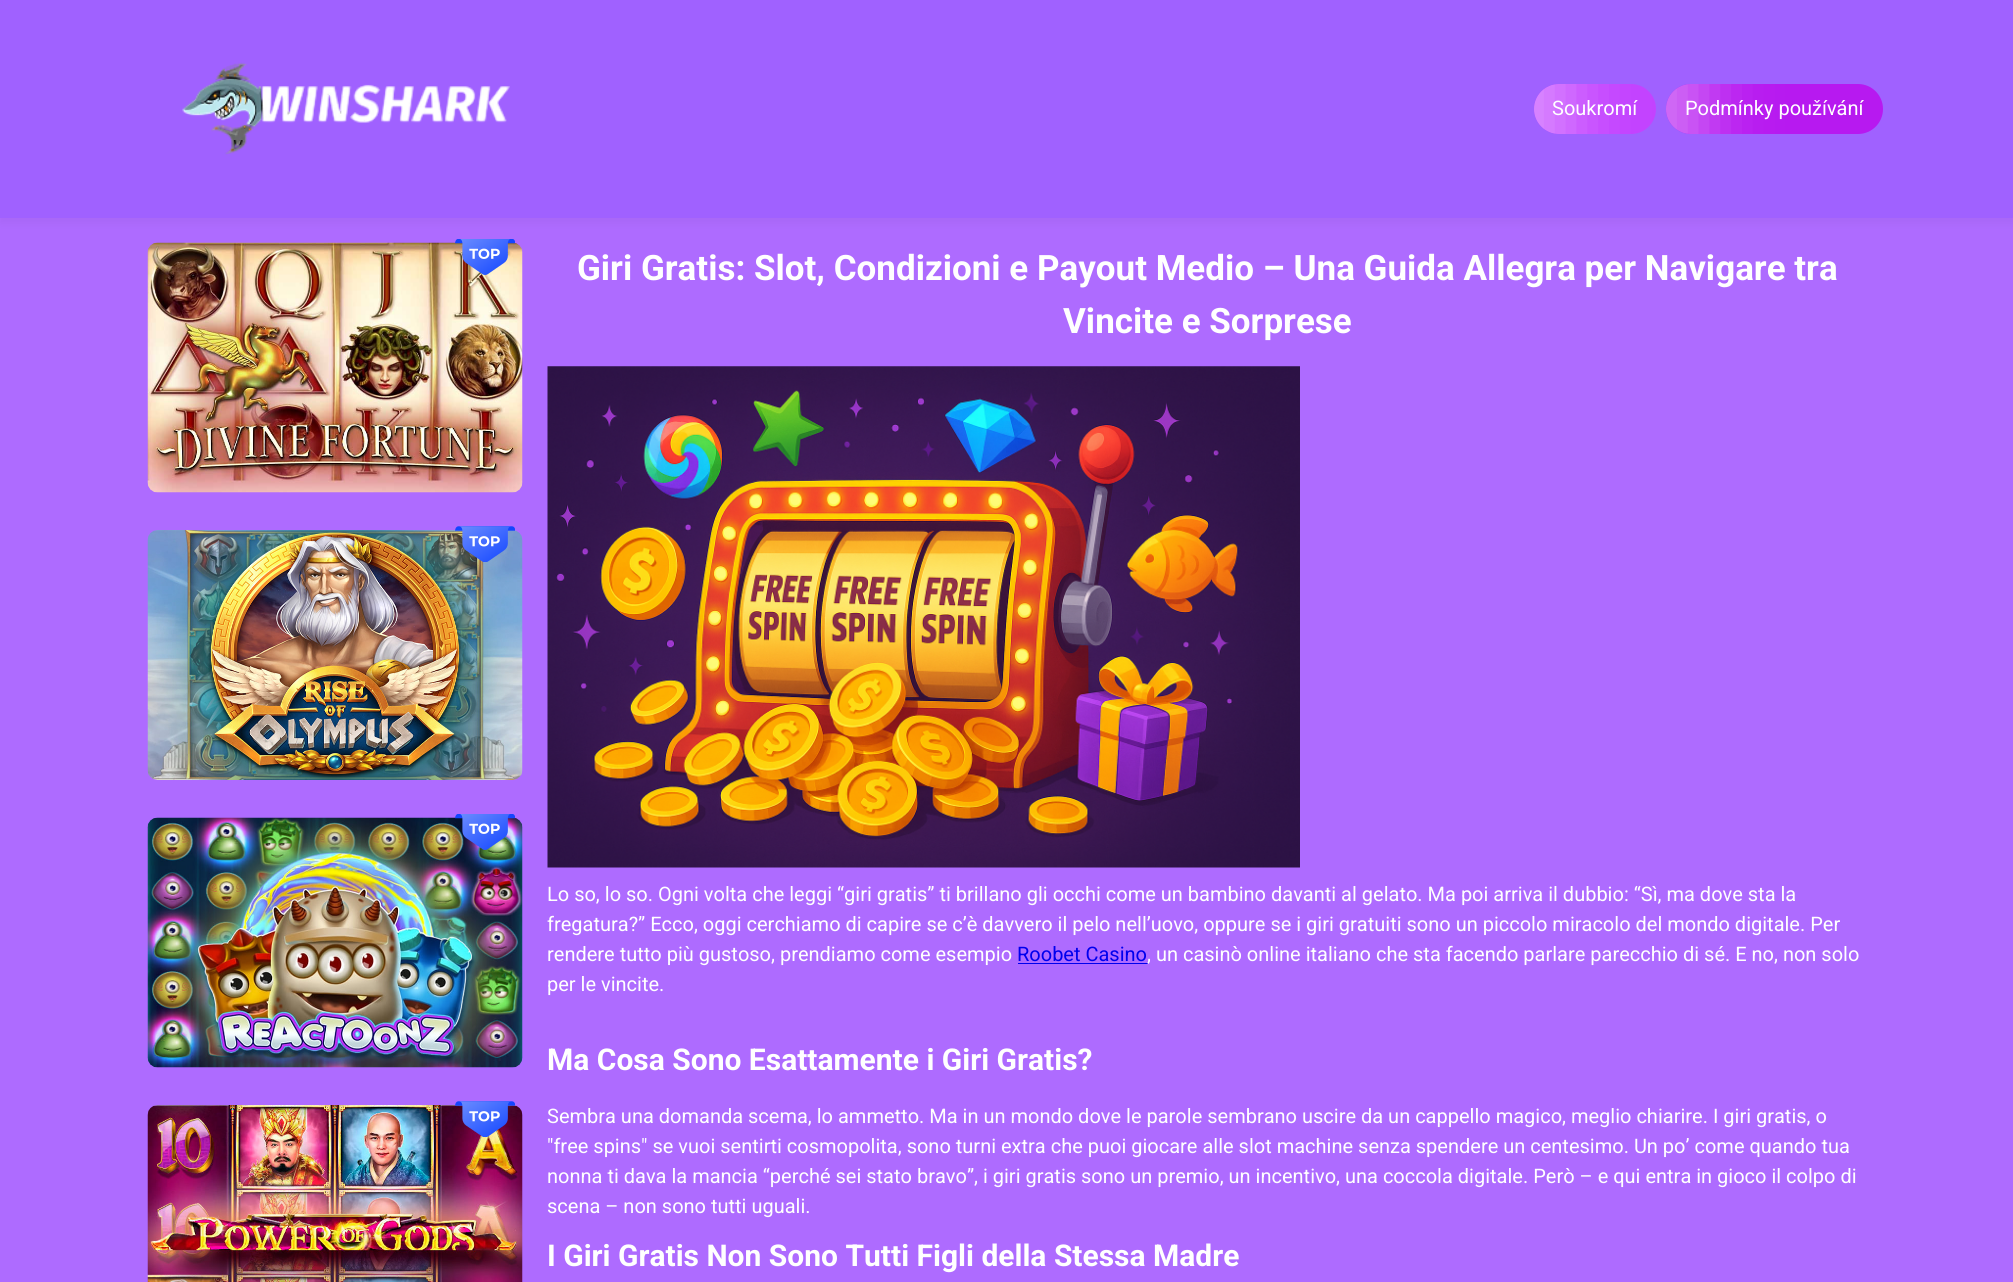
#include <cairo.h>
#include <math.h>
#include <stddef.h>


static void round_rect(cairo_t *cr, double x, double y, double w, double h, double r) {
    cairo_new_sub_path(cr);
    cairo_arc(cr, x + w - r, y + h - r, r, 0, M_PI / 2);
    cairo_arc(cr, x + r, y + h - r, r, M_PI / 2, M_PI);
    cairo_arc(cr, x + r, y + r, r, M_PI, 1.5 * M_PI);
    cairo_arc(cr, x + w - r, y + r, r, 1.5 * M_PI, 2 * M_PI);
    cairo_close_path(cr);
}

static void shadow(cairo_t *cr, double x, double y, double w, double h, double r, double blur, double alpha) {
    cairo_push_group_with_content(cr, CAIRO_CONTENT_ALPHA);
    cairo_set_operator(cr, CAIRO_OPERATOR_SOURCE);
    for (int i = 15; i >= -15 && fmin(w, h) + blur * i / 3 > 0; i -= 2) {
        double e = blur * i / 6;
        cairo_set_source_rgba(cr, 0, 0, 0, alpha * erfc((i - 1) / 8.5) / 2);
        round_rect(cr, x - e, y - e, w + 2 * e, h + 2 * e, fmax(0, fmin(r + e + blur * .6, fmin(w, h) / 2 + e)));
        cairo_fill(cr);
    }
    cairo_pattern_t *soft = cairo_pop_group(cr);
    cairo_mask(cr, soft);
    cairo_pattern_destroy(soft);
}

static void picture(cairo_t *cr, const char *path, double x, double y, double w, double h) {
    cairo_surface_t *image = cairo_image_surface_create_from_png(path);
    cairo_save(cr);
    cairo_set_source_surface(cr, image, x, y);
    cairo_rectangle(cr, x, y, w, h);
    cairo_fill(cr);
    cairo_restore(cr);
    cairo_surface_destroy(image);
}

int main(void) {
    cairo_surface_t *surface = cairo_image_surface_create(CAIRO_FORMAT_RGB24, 2013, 1282);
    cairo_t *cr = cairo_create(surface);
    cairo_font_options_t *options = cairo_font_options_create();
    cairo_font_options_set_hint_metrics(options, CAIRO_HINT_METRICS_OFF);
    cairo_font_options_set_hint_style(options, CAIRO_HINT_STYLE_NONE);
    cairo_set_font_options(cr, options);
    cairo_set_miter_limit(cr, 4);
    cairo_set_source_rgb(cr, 0.682, 0.42, 1);
    cairo_paint(cr);
    cairo_set_source_rgb(cr, 0, 0, 0);
    shadow(cr, 0, 5, 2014, 218, 0, 5, 0.04);
    cairo_set_source_rgb(cr, 0.627, 0.38, 1);
    cairo_rectangle(cr, 0, 0, 2013, 218);
    cairo_fill(cr);
    picture(cr, "img1.png", 182, 62, 328, 93);
    cairo_set_source_rgb(cr, 0.765, 0.259, 1);
    round_rect(cr, 1534, 84, 122, 50, 25);
    cairo_fill(cr);
    cairo_save(cr);
    round_rect(cr, 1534, 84, 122, 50, 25);
    cairo_clip(cr);
    cairo_set_source_rgb(cr, 1, 1, 1);
    shadow(cr, 1496, -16, 75, 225, 0, 32.5, 0.4);
    cairo_restore(cr);
    cairo_select_font_face(cr, "Roboto", CAIRO_FONT_SLANT_NORMAL, CAIRO_FONT_WEIGHT_NORMAL);
    cairo_set_font_size(cr, 20);
    cairo_set_source_rgb(cr, 1, 1, 1);
    cairo_move_to(cr, 1552, 115);
    cairo_show_text(cr, "Soukromí");
    cairo_set_source_rgb(cr, 0.718, 0.098, 0.941);
    round_rect(cr, 1666, 84, 217, 50, 25);
    cairo_fill(cr);
    cairo_save(cr);
    round_rect(cr, 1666, 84, 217, 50, 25);
    cairo_clip(cr);
    cairo_set_source_rgb(cr, 1, 1, 1);
    shadow(cr, 1629, -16, 75, 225, 0, 32.5, 0.4);
    cairo_restore(cr);
    cairo_set_source_rgb(cr, 1, 1, 1);
    cairo_move_to(cr, 1685, 115);
    cairo_show_text(cr, "Podmínky používání");
    picture(cr, "img3.png", 147, 242, 376, 251);
    picture(cr, "img2.png", 455, 239, 60, 36);
    picture(cr, "img5.png", 147, 530, 376, 250);
    picture(cr, "img4.png", 455, 526, 60, 36);
    picture(cr, "img7.png", 147, 817, 376, 251);
    picture(cr, "img6.png", 455, 814, 60, 36);
    picture(cr, "img9.png", 147, 1105, 376, 177);
    picture(cr, "img8.png", 455, 1101, 60, 36);
    cairo_select_font_face(cr, "Roboto", CAIRO_FONT_SLANT_NORMAL, CAIRO_FONT_WEIGHT_BOLD);
    cairo_set_font_size(cr, 35);
    cairo_move_to(cr, 577, 280);
    cairo_show_text(cr, "Giri Gratis: Slot, Condizioni e Payout Medio – Una Guida Allegra per Navigare tra");
    cairo_move_to(cr, 1063, 333);
    cairo_show_text(cr, "Vincite e Sorprese");
    picture(cr, "img10.png", 547, 366, 753, 502);
    cairo_select_font_face(cr, "Roboto", CAIRO_FONT_SLANT_NORMAL, CAIRO_FONT_WEIGHT_NORMAL);
    cairo_set_font_size(cr, 20);
    cairo_move_to(cr, 547, 901);
    cairo_show_text(cr, "Lo so, lo so. Ogni volta che leggi “giri gratis” ti brillano gli occhi come un bambino davanti al gelato. Ma poi arriva il dubbio: “Sì, ma dove sta la");
    cairo_move_to(cr, 547, 931);
    cairo_show_text(cr, "fregatura?” Ecco, oggi cerchiamo di capire se c’è davvero il pelo nell’uovo, oppure se i giri gratuiti sono un piccolo miracolo del mondo digitale. Per");
    cairo_move_to(cr, 547, 961);
    cairo_show_text(cr, "rendere tutto più gustoso, prendiamo come esempio");
    cairo_set_source_rgb(cr, 0, 0, 0.933);
    cairo_move_to(cr, 1017, 961);
    cairo_show_text(cr, "Roobet Casino");
    cairo_rectangle(cr, 1018, 963, 130, 1);
    cairo_fill(cr);
    cairo_set_source_rgb(cr, 1, 1, 1);
    cairo_move_to(cr, 1147, 961);
    cairo_show_text(cr, ", un casinò online italiano che sta facendo parlare parecchio di sé. E no, non solo");
    cairo_move_to(cr, 547, 991);
    cairo_show_text(cr, "per le vincite.");
    cairo_select_font_face(cr, "Roboto", CAIRO_FONT_SLANT_NORMAL, CAIRO_FONT_WEIGHT_BOLD);
    cairo_set_font_size(cr, 30);
    cairo_move_to(cr, 547, 1070);
    cairo_show_text(cr, "Ma Cosa Sono Esattamente i Giri Gratis?");
    cairo_select_font_face(cr, "Roboto", CAIRO_FONT_SLANT_NORMAL, CAIRO_FONT_WEIGHT_NORMAL);
    cairo_set_font_size(cr, 20);
    cairo_move_to(cr, 547, 1123);
    cairo_show_text(cr, "Sembra una domanda scema, lo ammetto. Ma in un mondo dove le parole sembrano uscire da un cappello magico, meglio chiarire. I giri gratis, o");
    cairo_move_to(cr, 547, 1153);
    cairo_show_text(cr, "\"free spins\" se vuoi sentirti cosmopolita, sono turni extra che puoi giocare alle slot machine senza spendere un centesimo. Un po’ come quando tua");
    cairo_move_to(cr, 547, 1183);
    cairo_show_text(cr, "nonna ti dava la mancia “perché sei stato bravo”, i giri gratis sono un premio, un incentivo, una coccola digitale. Però – e qui entra in gioco il colpo di");
    cairo_move_to(cr, 547, 1213);
    cairo_show_text(cr, "scena – non sono tutti uguali.");
    cairo_select_font_face(cr, "Roboto", CAIRO_FONT_SLANT_NORMAL, CAIRO_FONT_WEIGHT_BOLD);
    cairo_set_font_size(cr, 30);
    cairo_move_to(cr, 547, 1266);
    cairo_show_text(cr, "I Giri Gratis Non Sono Tutti Figli della Stessa Madre");
    cairo_surface_write_to_png(surface, "page.png");
    cairo_font_options_destroy(options);
    cairo_destroy(cr);
    cairo_surface_destroy(surface);
    return 0;
}
